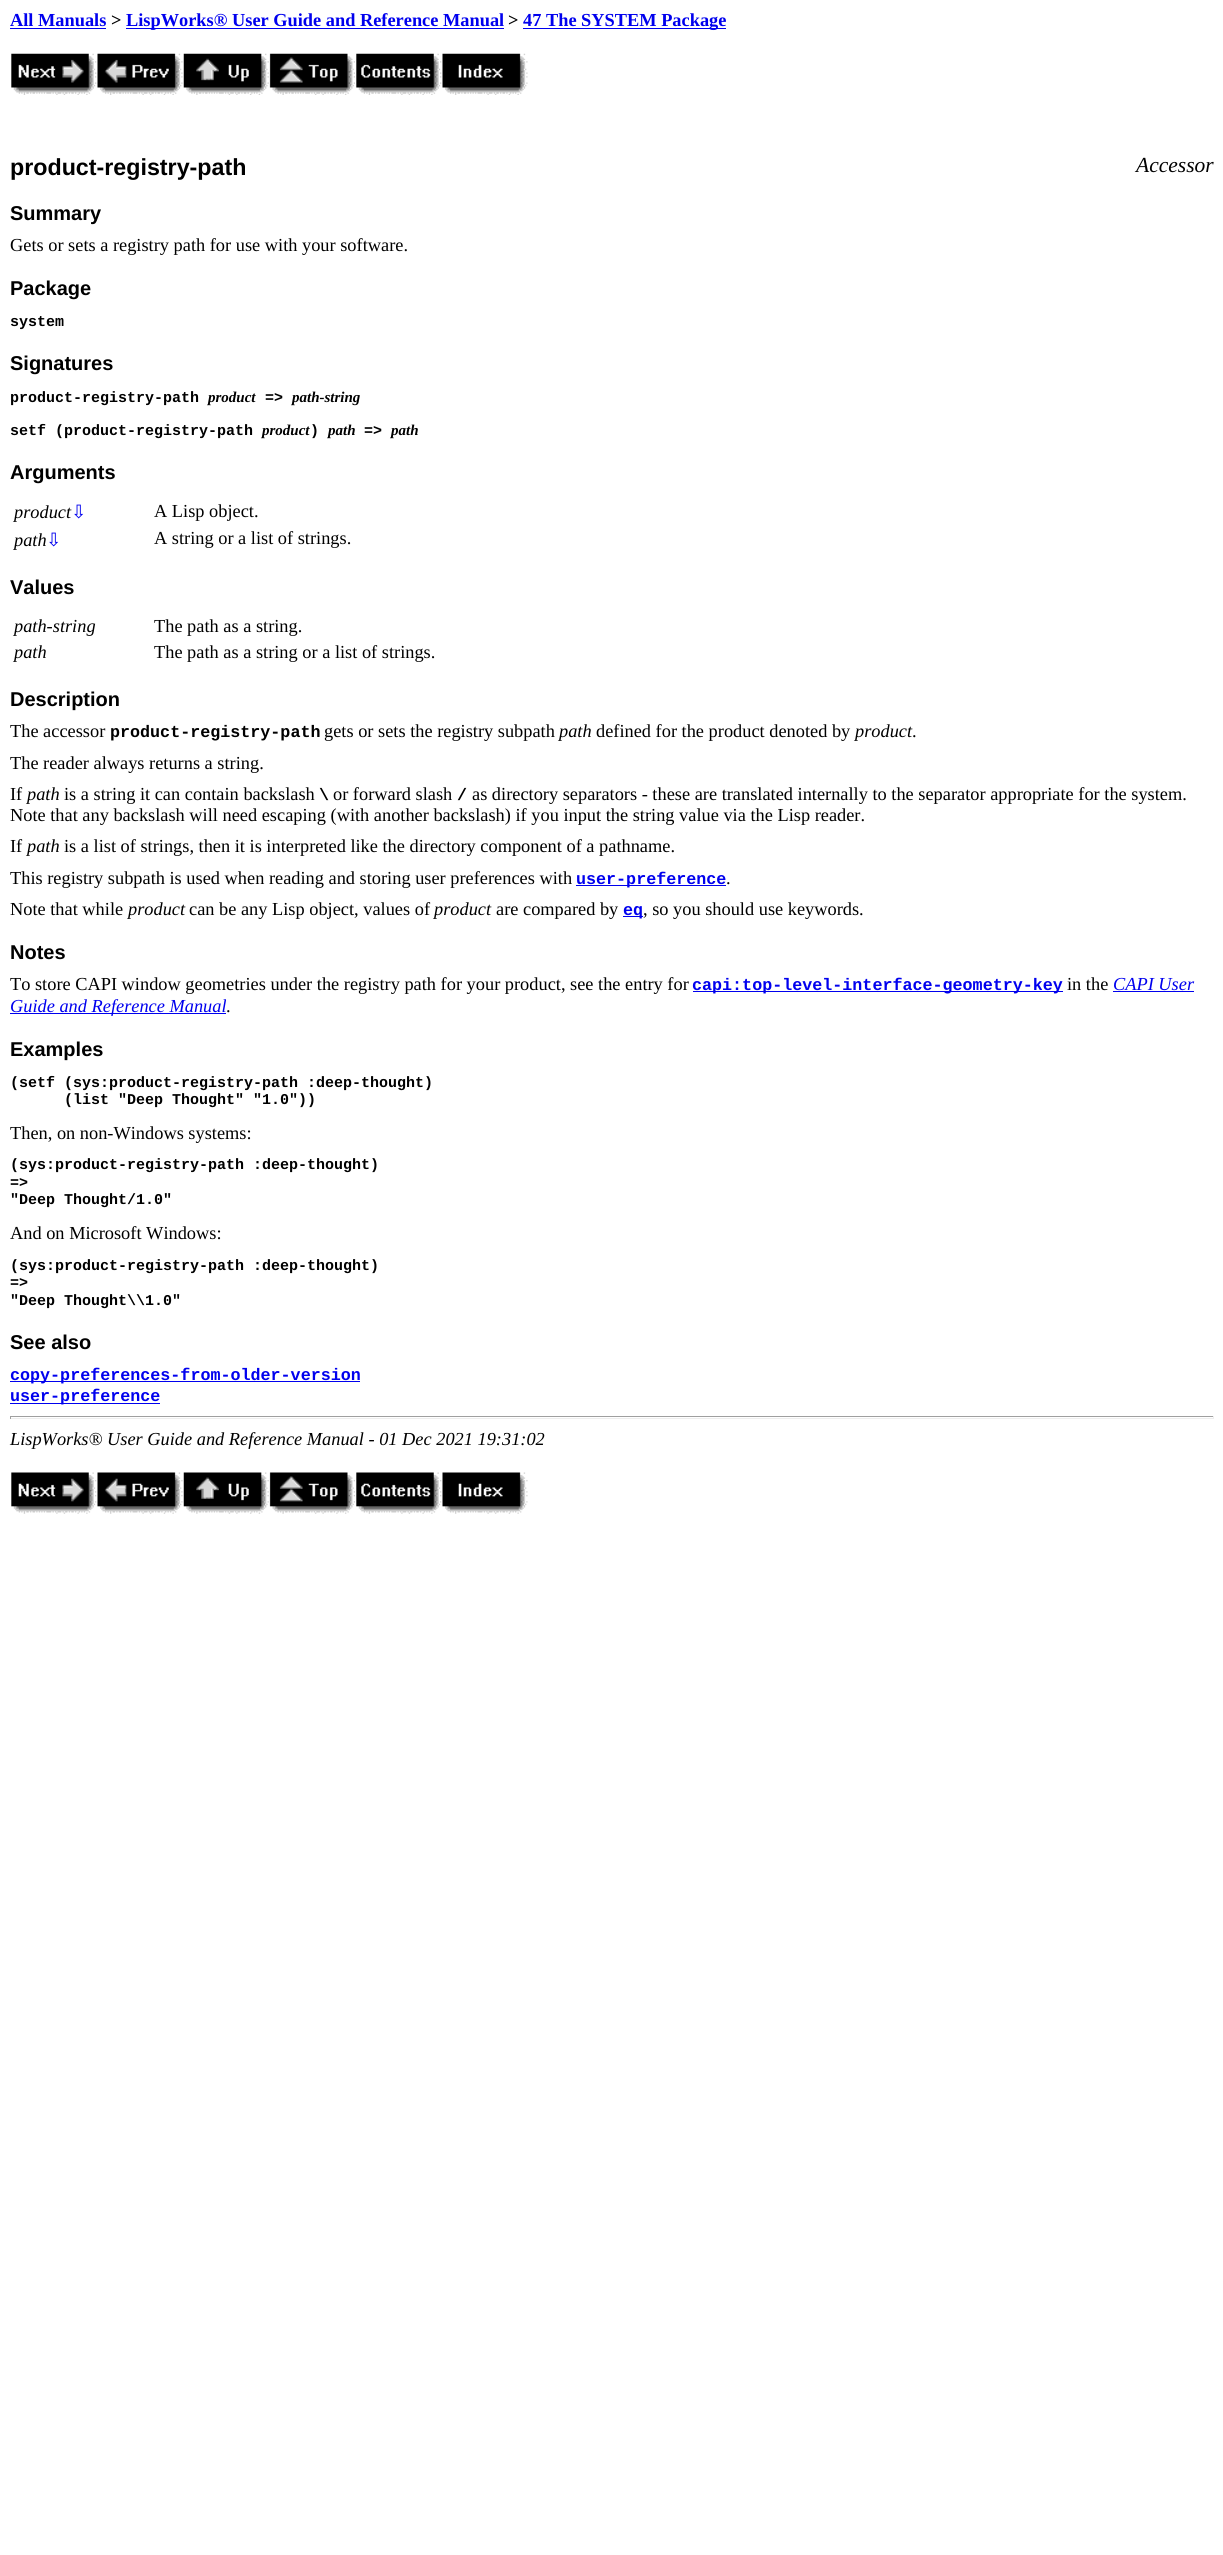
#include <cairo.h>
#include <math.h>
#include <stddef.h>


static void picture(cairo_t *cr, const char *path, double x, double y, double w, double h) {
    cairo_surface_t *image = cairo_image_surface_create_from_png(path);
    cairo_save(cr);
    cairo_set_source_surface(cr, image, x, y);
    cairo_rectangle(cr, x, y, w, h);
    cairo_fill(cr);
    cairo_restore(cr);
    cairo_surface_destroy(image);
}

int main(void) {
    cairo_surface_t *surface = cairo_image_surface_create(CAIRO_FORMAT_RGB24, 1223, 2555);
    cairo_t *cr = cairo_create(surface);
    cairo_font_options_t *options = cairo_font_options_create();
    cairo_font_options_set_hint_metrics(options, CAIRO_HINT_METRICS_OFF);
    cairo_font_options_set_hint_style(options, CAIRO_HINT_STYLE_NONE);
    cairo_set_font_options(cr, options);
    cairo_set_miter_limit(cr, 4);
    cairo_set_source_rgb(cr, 1, 1, 1);
    cairo_paint(cr);
    cairo_select_font_face(cr, "Liberation Serif", CAIRO_FONT_SLANT_NORMAL, CAIRO_FONT_WEIGHT_BOLD);
    cairo_set_font_size(cr, 18.35);
    cairo_set_source_rgb(cr, 0, 0, 0.933);
    cairo_move_to(cr, 10, 26);
    cairo_show_text(cr, "All Manuals");
    cairo_rectangle(cr, 10, 28, 96, 1);
    cairo_fill(cr);
    cairo_set_source_rgb(cr, 0, 0, 0);
    cairo_move_to(cr, 111, 26);
    cairo_show_text(cr, ">");
    cairo_set_source_rgb(cr, 0, 0, 0.933);
    cairo_rectangle(cr, 126, 28, 378, 1);
    cairo_fill(cr);
    cairo_move_to(cr, 126, 26);
    cairo_show_text(cr, "LispWorks® User Guide and Reference Manual");
    cairo_set_source_rgb(cr, 0, 0, 0);
    cairo_move_to(cr, 508, 26);
    cairo_show_text(cr, ">");
    cairo_set_source_rgb(cr, 0, 0, 0.933);
    cairo_rectangle(cr, 523, 28, 203, 1);
    cairo_fill(cr);
    cairo_move_to(cr, 523, 26);
    cairo_show_text(cr, "47 The SYSTEM Package");
    picture(cr, "img1.png", 11, 53, 86, 42);
    picture(cr, "img2.png", 97, 53, 86, 42);
    picture(cr, "img3.png", 183, 53, 86, 42);
    picture(cr, "img4.png", 269, 53, 86, 42);
    picture(cr, "img5.png", 356, 53, 86, 42);
    picture(cr, "img6.png", 442, 53, 86, 42);
    cairo_select_font_face(cr, "Liberation Sans", CAIRO_FONT_SLANT_NORMAL, CAIRO_FONT_WEIGHT_BOLD);
    cairo_set_font_size(cr, 23.25);
    cairo_set_source_rgb(cr, 0, 0, 0);
    cairo_move_to(cr, 10, 175);
    cairo_show_text(cr, "product-registry-path");
    cairo_select_font_face(cr, "Liberation Serif", CAIRO_FONT_SLANT_ITALIC, CAIRO_FONT_WEIGHT_NORMAL);
    cairo_set_font_size(cr, 21.5);
    cairo_move_to(cr, 1136, 172);
    cairo_show_text(cr, "Accessor");
    cairo_select_font_face(cr, "Liberation Sans", CAIRO_FONT_SLANT_NORMAL, CAIRO_FONT_WEIGHT_BOLD);
    cairo_set_font_size(cr, 20);
    cairo_move_to(cr, 10, 220);
    cairo_show_text(cr, "Summary");
    cairo_select_font_face(cr, "Liberation Serif", CAIRO_FONT_SLANT_NORMAL, CAIRO_FONT_WEIGHT_NORMAL);
    cairo_set_font_size(cr, 18.35);
    cairo_move_to(cr, 10, 251);
    cairo_show_text(cr, "Gets or sets a registry path for use with your software.");
    cairo_select_font_face(cr, "Liberation Sans", CAIRO_FONT_SLANT_NORMAL, CAIRO_FONT_WEIGHT_BOLD);
    cairo_set_font_size(cr, 20);
    cairo_move_to(cr, 10, 295);
    cairo_show_text(cr, "Package");
    cairo_select_font_face(cr, "Liberation Mono", CAIRO_FONT_SLANT_NORMAL, CAIRO_FONT_WEIGHT_BOLD);
    cairo_set_font_size(cr, 15);
    cairo_move_to(cr, 10, 326);
    cairo_show_text(cr, "system");
    cairo_select_font_face(cr, "Liberation Sans", CAIRO_FONT_SLANT_NORMAL, CAIRO_FONT_WEIGHT_BOLD);
    cairo_set_font_size(cr, 20);
    cairo_move_to(cr, 10, 370);
    cairo_show_text(cr, "Signatures");
    cairo_select_font_face(cr, "Liberation Mono", CAIRO_FONT_SLANT_NORMAL, CAIRO_FONT_WEIGHT_BOLD);
    cairo_set_font_size(cr, 15);
    cairo_move_to(cr, 10, 402);
    cairo_show_text(cr, "product-registry-path");
    cairo_select_font_face(cr, "Liberation Serif", CAIRO_FONT_SLANT_ITALIC, CAIRO_FONT_WEIGHT_BOLD);
    cairo_move_to(cr, 208, 402);
    cairo_show_text(cr, "product");
    cairo_select_font_face(cr, "Liberation Mono", CAIRO_FONT_SLANT_NORMAL, CAIRO_FONT_WEIGHT_BOLD);
    cairo_move_to(cr, 265, 402);
    cairo_show_text(cr, "=>");
    cairo_select_font_face(cr, "Liberation Serif", CAIRO_FONT_SLANT_ITALIC, CAIRO_FONT_WEIGHT_BOLD);
    cairo_move_to(cr, 292, 402);
    cairo_show_text(cr, "path-string");
    cairo_select_font_face(cr, "Liberation Mono", CAIRO_FONT_SLANT_NORMAL, CAIRO_FONT_WEIGHT_BOLD);
    cairo_move_to(cr, 10, 435);
    cairo_show_text(cr, "setf (product-registry-path");
    cairo_select_font_face(cr, "Liberation Serif", CAIRO_FONT_SLANT_ITALIC, CAIRO_FONT_WEIGHT_BOLD);
    cairo_move_to(cr, 262, 435);
    cairo_show_text(cr, "product");
    cairo_select_font_face(cr, "Liberation Mono", CAIRO_FONT_SLANT_NORMAL, CAIRO_FONT_WEIGHT_BOLD);
    cairo_move_to(cr, 310, 435);
    cairo_show_text(cr, ")");
    cairo_select_font_face(cr, "Liberation Serif", CAIRO_FONT_SLANT_ITALIC, CAIRO_FONT_WEIGHT_BOLD);
    cairo_move_to(cr, 328, 435);
    cairo_show_text(cr, "path");
    cairo_select_font_face(cr, "Liberation Mono", CAIRO_FONT_SLANT_NORMAL, CAIRO_FONT_WEIGHT_BOLD);
    cairo_move_to(cr, 364, 435);
    cairo_show_text(cr, "=>");
    cairo_select_font_face(cr, "Liberation Serif", CAIRO_FONT_SLANT_ITALIC, CAIRO_FONT_WEIGHT_BOLD);
    cairo_move_to(cr, 391, 435);
    cairo_show_text(cr, "path");
    cairo_select_font_face(cr, "Liberation Sans", CAIRO_FONT_SLANT_NORMAL, CAIRO_FONT_WEIGHT_BOLD);
    cairo_set_font_size(cr, 20);
    cairo_move_to(cr, 10, 479);
    cairo_show_text(cr, "Arguments");
    cairo_select_font_face(cr, "Liberation Serif", CAIRO_FONT_SLANT_ITALIC, CAIRO_FONT_WEIGHT_NORMAL);
    cairo_set_font_size(cr, 18.35);
    cairo_move_to(cr, 14, 518);
    cairo_show_text(cr, "product");
    cairo_select_font_face(cr, "DejaVu Sans", CAIRO_FONT_SLANT_NORMAL, CAIRO_FONT_WEIGHT_NORMAL);
    cairo_set_source_rgb(cr, 0, 0, 0.933);
    cairo_move_to(cr, 71, 518);
    cairo_show_text(cr, "⇩");
    cairo_select_font_face(cr, "Liberation Serif", CAIRO_FONT_SLANT_NORMAL, CAIRO_FONT_WEIGHT_NORMAL);
    cairo_set_source_rgb(cr, 0, 0, 0);
    cairo_move_to(cr, 154, 517);
    cairo_show_text(cr, "A Lisp object.");
    cairo_select_font_face(cr, "Liberation Serif", CAIRO_FONT_SLANT_ITALIC, CAIRO_FONT_WEIGHT_NORMAL);
    cairo_move_to(cr, 14, 546);
    cairo_show_text(cr, "path");
    cairo_select_font_face(cr, "DejaVu Sans", CAIRO_FONT_SLANT_NORMAL, CAIRO_FONT_WEIGHT_NORMAL);
    cairo_set_source_rgb(cr, 0, 0, 0.933);
    cairo_move_to(cr, 46, 546);
    cairo_show_text(cr, "⇩");
    cairo_select_font_face(cr, "Liberation Serif", CAIRO_FONT_SLANT_NORMAL, CAIRO_FONT_WEIGHT_NORMAL);
    cairo_set_source_rgb(cr, 0, 0, 0);
    cairo_move_to(cr, 154, 544);
    cairo_show_text(cr, "A string or a list of strings.");
    cairo_select_font_face(cr, "Liberation Sans", CAIRO_FONT_SLANT_NORMAL, CAIRO_FONT_WEIGHT_BOLD);
    cairo_set_font_size(cr, 20);
    cairo_move_to(cr, 10, 594);
    cairo_show_text(cr, "Values");
    cairo_select_font_face(cr, "Liberation Serif", CAIRO_FONT_SLANT_ITALIC, CAIRO_FONT_WEIGHT_NORMAL);
    cairo_set_font_size(cr, 18.35);
    cairo_move_to(cr, 14, 632);
    cairo_show_text(cr, "path-string");
    cairo_select_font_face(cr, "Liberation Serif", CAIRO_FONT_SLANT_NORMAL, CAIRO_FONT_WEIGHT_NORMAL);
    cairo_move_to(cr, 154, 632);
    cairo_show_text(cr, "The path as a string.");
    cairo_select_font_face(cr, "Liberation Serif", CAIRO_FONT_SLANT_ITALIC, CAIRO_FONT_WEIGHT_NORMAL);
    cairo_move_to(cr, 14, 658);
    cairo_show_text(cr, "path");
    cairo_select_font_face(cr, "Liberation Serif", CAIRO_FONT_SLANT_NORMAL, CAIRO_FONT_WEIGHT_NORMAL);
    cairo_move_to(cr, 154, 658);
    cairo_show_text(cr, "The path as a string or a list of strings.");
    cairo_select_font_face(cr, "Liberation Sans", CAIRO_FONT_SLANT_NORMAL, CAIRO_FONT_WEIGHT_BOLD);
    cairo_set_font_size(cr, 20);
    cairo_move_to(cr, 10, 706);
    cairo_show_text(cr, "Description");
    cairo_select_font_face(cr, "Liberation Serif", CAIRO_FONT_SLANT_NORMAL, CAIRO_FONT_WEIGHT_NORMAL);
    cairo_set_font_size(cr, 18.35);
    cairo_move_to(cr, 10, 737);
    cairo_show_text(cr, "The accessor");
    cairo_select_font_face(cr, "Liberation Mono", CAIRO_FONT_SLANT_NORMAL, CAIRO_FONT_WEIGHT_BOLD);
    cairo_set_font_size(cr, 16.7);
    cairo_move_to(cr, 110, 737);
    cairo_show_text(cr, "product-registry-path");
    cairo_select_font_face(cr, "Liberation Serif", CAIRO_FONT_SLANT_NORMAL, CAIRO_FONT_WEIGHT_NORMAL);
    cairo_set_font_size(cr, 18.35);
    cairo_move_to(cr, 324, 737);
    cairo_show_text(cr, "gets or sets the registry subpath");
    cairo_select_font_face(cr, "Liberation Serif", CAIRO_FONT_SLANT_ITALIC, CAIRO_FONT_WEIGHT_NORMAL);
    cairo_move_to(cr, 559, 737);
    cairo_show_text(cr, "path");
    cairo_select_font_face(cr, "Liberation Serif", CAIRO_FONT_SLANT_NORMAL, CAIRO_FONT_WEIGHT_NORMAL);
    cairo_move_to(cr, 596, 737);
    cairo_show_text(cr, "defined for the product denoted by");
    cairo_select_font_face(cr, "Liberation Serif", CAIRO_FONT_SLANT_ITALIC, CAIRO_FONT_WEIGHT_NORMAL);
    cairo_move_to(cr, 855, 737);
    cairo_show_text(cr, "product");
    cairo_select_font_face(cr, "Liberation Serif", CAIRO_FONT_SLANT_NORMAL, CAIRO_FONT_WEIGHT_NORMAL);
    cairo_move_to(cr, 912, 737);
    cairo_show_text(cr, ".");
    cairo_move_to(cr, 10, 769);
    cairo_show_text(cr, "The reader always returns a string.");
    cairo_move_to(cr, 10, 800);
    cairo_show_text(cr, "If");
    cairo_select_font_face(cr, "Liberation Serif", CAIRO_FONT_SLANT_ITALIC, CAIRO_FONT_WEIGHT_NORMAL);
    cairo_move_to(cr, 27, 800);
    cairo_show_text(cr, "path");
    cairo_select_font_face(cr, "Liberation Serif", CAIRO_FONT_SLANT_NORMAL, CAIRO_FONT_WEIGHT_NORMAL);
    cairo_move_to(cr, 64, 800);
    cairo_show_text(cr, "is a string it can contain backslash");
    cairo_select_font_face(cr, "Liberation Mono", CAIRO_FONT_SLANT_NORMAL, CAIRO_FONT_WEIGHT_BOLD);
    cairo_set_font_size(cr, 16.7);
    cairo_move_to(cr, 319, 800);
    cairo_show_text(cr, "\\");
    cairo_select_font_face(cr, "Liberation Serif", CAIRO_FONT_SLANT_NORMAL, CAIRO_FONT_WEIGHT_NORMAL);
    cairo_set_font_size(cr, 18.35);
    cairo_move_to(cr, 333, 800);
    cairo_show_text(cr, "or forward slash");
    cairo_select_font_face(cr, "Liberation Mono", CAIRO_FONT_SLANT_NORMAL, CAIRO_FONT_WEIGHT_BOLD);
    cairo_set_font_size(cr, 16.7);
    cairo_move_to(cr, 457, 800);
    cairo_show_text(cr, "/");
    cairo_select_font_face(cr, "Liberation Serif", CAIRO_FONT_SLANT_NORMAL, CAIRO_FONT_WEIGHT_NORMAL);
    cairo_set_font_size(cr, 18.35);
    cairo_move_to(cr, 472, 800);
    cairo_show_text(cr, "as directory separators - these are translated internally to the separator appropriate for the system.");
    cairo_move_to(cr, 10, 821);
    cairo_show_text(cr, "Note that any backslash will need escaping (with another backslash) if you input the string value via the Lisp reader.");
    cairo_move_to(cr, 10, 852);
    cairo_show_text(cr, "If");
    cairo_select_font_face(cr, "Liberation Serif", CAIRO_FONT_SLANT_ITALIC, CAIRO_FONT_WEIGHT_NORMAL);
    cairo_move_to(cr, 27, 852);
    cairo_show_text(cr, "path");
    cairo_select_font_face(cr, "Liberation Serif", CAIRO_FONT_SLANT_NORMAL, CAIRO_FONT_WEIGHT_NORMAL);
    cairo_move_to(cr, 64, 852);
    cairo_show_text(cr, "is a list of strings, then it is interpreted like the directory component of a pathname.");
    cairo_move_to(cr, 10, 884);
    cairo_show_text(cr, "This registry subpath is used when reading and storing user preferences with");
    cairo_set_source_rgb(cr, 0, 0, 0.933);
    cairo_rectangle(cr, 576, 885, 150, 1);
    cairo_fill(cr);
    cairo_select_font_face(cr, "Liberation Mono", CAIRO_FONT_SLANT_NORMAL, CAIRO_FONT_WEIGHT_BOLD);
    cairo_set_font_size(cr, 16.7);
    cairo_move_to(cr, 576, 884);
    cairo_show_text(cr, "user-preference");
    cairo_select_font_face(cr, "Liberation Serif", CAIRO_FONT_SLANT_NORMAL, CAIRO_FONT_WEIGHT_NORMAL);
    cairo_set_font_size(cr, 18.35);
    cairo_set_source_rgb(cr, 0, 0, 0);
    cairo_move_to(cr, 726, 884);
    cairo_show_text(cr, ".");
    cairo_move_to(cr, 10, 915);
    cairo_show_text(cr, "Note that while");
    cairo_select_font_face(cr, "Liberation Serif", CAIRO_FONT_SLANT_ITALIC, CAIRO_FONT_WEIGHT_NORMAL);
    cairo_move_to(cr, 128, 915);
    cairo_show_text(cr, "product");
    cairo_select_font_face(cr, "Liberation Serif", CAIRO_FONT_SLANT_NORMAL, CAIRO_FONT_WEIGHT_NORMAL);
    cairo_move_to(cr, 189, 915);
    cairo_show_text(cr, "can be any Lisp object, values of");
    cairo_select_font_face(cr, "Liberation Serif", CAIRO_FONT_SLANT_ITALIC, CAIRO_FONT_WEIGHT_NORMAL);
    cairo_move_to(cr, 434, 915);
    cairo_show_text(cr, "product");
    cairo_select_font_face(cr, "Liberation Serif", CAIRO_FONT_SLANT_NORMAL, CAIRO_FONT_WEIGHT_NORMAL);
    cairo_move_to(cr, 496, 915);
    cairo_show_text(cr, "are compared by");
    cairo_set_source_rgb(cr, 0, 0, 0.933);
    cairo_rectangle(cr, 623, 916, 20, 1);
    cairo_fill(cr);
    cairo_select_font_face(cr, "Liberation Mono", CAIRO_FONT_SLANT_NORMAL, CAIRO_FONT_WEIGHT_BOLD);
    cairo_set_font_size(cr, 16.7);
    cairo_move_to(cr, 623, 915);
    cairo_show_text(cr, "eq");
    cairo_select_font_face(cr, "Liberation Serif", CAIRO_FONT_SLANT_NORMAL, CAIRO_FONT_WEIGHT_NORMAL);
    cairo_set_font_size(cr, 18.35);
    cairo_set_source_rgb(cr, 0, 0, 0);
    cairo_move_to(cr, 643, 915);
    cairo_show_text(cr, ", so you should use keywords.");
    cairo_select_font_face(cr, "Liberation Sans", CAIRO_FONT_SLANT_NORMAL, CAIRO_FONT_WEIGHT_BOLD);
    cairo_set_font_size(cr, 20);
    cairo_move_to(cr, 10, 959);
    cairo_show_text(cr, "Notes");
    cairo_select_font_face(cr, "Liberation Serif", CAIRO_FONT_SLANT_NORMAL, CAIRO_FONT_WEIGHT_NORMAL);
    cairo_set_font_size(cr, 18.35);
    cairo_move_to(cr, 10, 990);
    cairo_show_text(cr, "To store CAPI window geometries under the registry path for your product, see the entry for");
    cairo_set_source_rgb(cr, 0, 0, 0.933);
    cairo_rectangle(cr, 693, 991, 370, 1);
    cairo_fill(cr);
    cairo_select_font_face(cr, "Liberation Mono", CAIRO_FONT_SLANT_NORMAL, CAIRO_FONT_WEIGHT_BOLD);
    cairo_set_font_size(cr, 16.7);
    cairo_move_to(cr, 692, 990);
    cairo_show_text(cr, "capi:top-level-interface-geometry-key");
    cairo_select_font_face(cr, "Liberation Serif", CAIRO_FONT_SLANT_NORMAL, CAIRO_FONT_WEIGHT_NORMAL);
    cairo_set_font_size(cr, 18.35);
    cairo_set_source_rgb(cr, 0, 0, 0);
    cairo_move_to(cr, 1067, 990);
    cairo_show_text(cr, "in the");
    cairo_select_font_face(cr, "Liberation Serif", CAIRO_FONT_SLANT_ITALIC, CAIRO_FONT_WEIGHT_NORMAL);
    cairo_set_source_rgb(cr, 0, 0, 0.933);
    cairo_move_to(cr, 1113, 990);
    cairo_show_text(cr, "CAPI User");
    cairo_rectangle(cr, 1113, 991, 81, 1);
    cairo_fill(cr);
    cairo_rectangle(cr, 10, 1013, 216, 1);
    cairo_fill(cr);
    cairo_move_to(cr, 10, 1012);
    cairo_show_text(cr, "Guide and Reference Manual");
    cairo_select_font_face(cr, "Liberation Serif", CAIRO_FONT_SLANT_NORMAL, CAIRO_FONT_WEIGHT_NORMAL);
    cairo_set_source_rgb(cr, 0, 0, 0);
    cairo_move_to(cr, 226, 1012);
    cairo_show_text(cr, ".");
    cairo_select_font_face(cr, "Liberation Sans", CAIRO_FONT_SLANT_NORMAL, CAIRO_FONT_WEIGHT_BOLD);
    cairo_set_font_size(cr, 20);
    cairo_move_to(cr, 10, 1056);
    cairo_show_text(cr, "Examples");
    cairo_select_font_face(cr, "Liberation Mono", CAIRO_FONT_SLANT_NORMAL, CAIRO_FONT_WEIGHT_BOLD);
    cairo_set_font_size(cr, 15);
    cairo_move_to(cr, 10, 1087);
    cairo_show_text(cr, "(setf (sys:product-registry-path :deep-thought)");
    cairo_move_to(cr, 64, 1104);
    cairo_show_text(cr, "(list \"Deep Thought\" \"1.0\"))");
    cairo_select_font_face(cr, "Liberation Serif", CAIRO_FONT_SLANT_NORMAL, CAIRO_FONT_WEIGHT_NORMAL);
    cairo_set_font_size(cr, 18.35);
    cairo_move_to(cr, 10, 1139);
    cairo_show_text(cr, "Then, on non-Windows systems:");
    cairo_select_font_face(cr, "Liberation Mono", CAIRO_FONT_SLANT_NORMAL, CAIRO_FONT_WEIGHT_BOLD);
    cairo_set_font_size(cr, 15);
    cairo_move_to(cr, 10, 1169);
    cairo_show_text(cr, "(sys:product-registry-path :deep-thought)");
    cairo_move_to(cr, 10, 1187);
    cairo_show_text(cr, "=>");
    cairo_move_to(cr, 10, 1204);
    cairo_show_text(cr, "\"Deep Thought/1.0\"");
    cairo_select_font_face(cr, "Liberation Serif", CAIRO_FONT_SLANT_NORMAL, CAIRO_FONT_WEIGHT_NORMAL);
    cairo_set_font_size(cr, 18.35);
    cairo_move_to(cr, 10, 1239);
    cairo_show_text(cr, "And on Microsoft Windows:");
    cairo_select_font_face(cr, "Liberation Mono", CAIRO_FONT_SLANT_NORMAL, CAIRO_FONT_WEIGHT_BOLD);
    cairo_set_font_size(cr, 15);
    cairo_move_to(cr, 10, 1270);
    cairo_show_text(cr, "(sys:product-registry-path :deep-thought)");
    cairo_move_to(cr, 10, 1287);
    cairo_show_text(cr, "=>");
    cairo_move_to(cr, 10, 1305);
    cairo_show_text(cr, "\"Deep Thought\\\\1.0\"");
    cairo_select_font_face(cr, "Liberation Sans", CAIRO_FONT_SLANT_NORMAL, CAIRO_FONT_WEIGHT_BOLD);
    cairo_set_font_size(cr, 20);
    cairo_move_to(cr, 10, 1349);
    cairo_show_text(cr, "See also");
    cairo_set_source_rgb(cr, 0, 0, 0.933);
    cairo_rectangle(cr, 10, 1381, 350, 1);
    cairo_fill(cr);
    cairo_select_font_face(cr, "Liberation Mono", CAIRO_FONT_SLANT_NORMAL, CAIRO_FONT_WEIGHT_BOLD);
    cairo_set_font_size(cr, 16.7);
    cairo_move_to(cr, 10, 1380);
    cairo_show_text(cr, "copy-preferences-from-older-version");
    cairo_rectangle(cr, 10, 1403, 150, 1);
    cairo_fill(cr);
    cairo_move_to(cr, 10, 1401);
    cairo_show_text(cr, "user-preference");
    cairo_set_source_rgb(cr, 0.624, 0.624, 0.624);
    cairo_rectangle(cr, 10, 1416, 1204, 1);
    cairo_fill(cr);
    cairo_set_source_rgb(cr, 0.933, 0.933, 0.933);
    cairo_rectangle(cr, 1213, 1416, 1, 3);
    cairo_fill(cr);
    cairo_rectangle(cr, 10, 1418, 1204, 1);
    cairo_fill(cr);
    cairo_set_source_rgb(cr, 0.624, 0.624, 0.624);
    cairo_rectangle(cr, 10, 1416, 1, 3);
    cairo_fill(cr);
    cairo_select_font_face(cr, "Liberation Serif", CAIRO_FONT_SLANT_ITALIC, CAIRO_FONT_WEIGHT_NORMAL);
    cairo_set_font_size(cr, 18.35);
    cairo_set_source_rgb(cr, 0, 0, 0);
    cairo_move_to(cr, 10, 1445);
    cairo_show_text(cr, "LispWorks® User Guide and Reference Manual - 01 Dec 2021 19:31:02");
    picture(cr, "img7.png", 11, 1472, 86, 42);
    picture(cr, "img8.png", 97, 1472, 86, 42);
    picture(cr, "img9.png", 183, 1472, 86, 42);
    picture(cr, "img10.png", 269, 1472, 86, 42);
    picture(cr, "img11.png", 356, 1472, 86, 42);
    picture(cr, "img12.png", 442, 1472, 86, 42);
    cairo_surface_write_to_png(surface, "page.png");
    cairo_font_options_destroy(options);
    cairo_destroy(cr);
    cairo_surface_destroy(surface);
    return 0;
}
